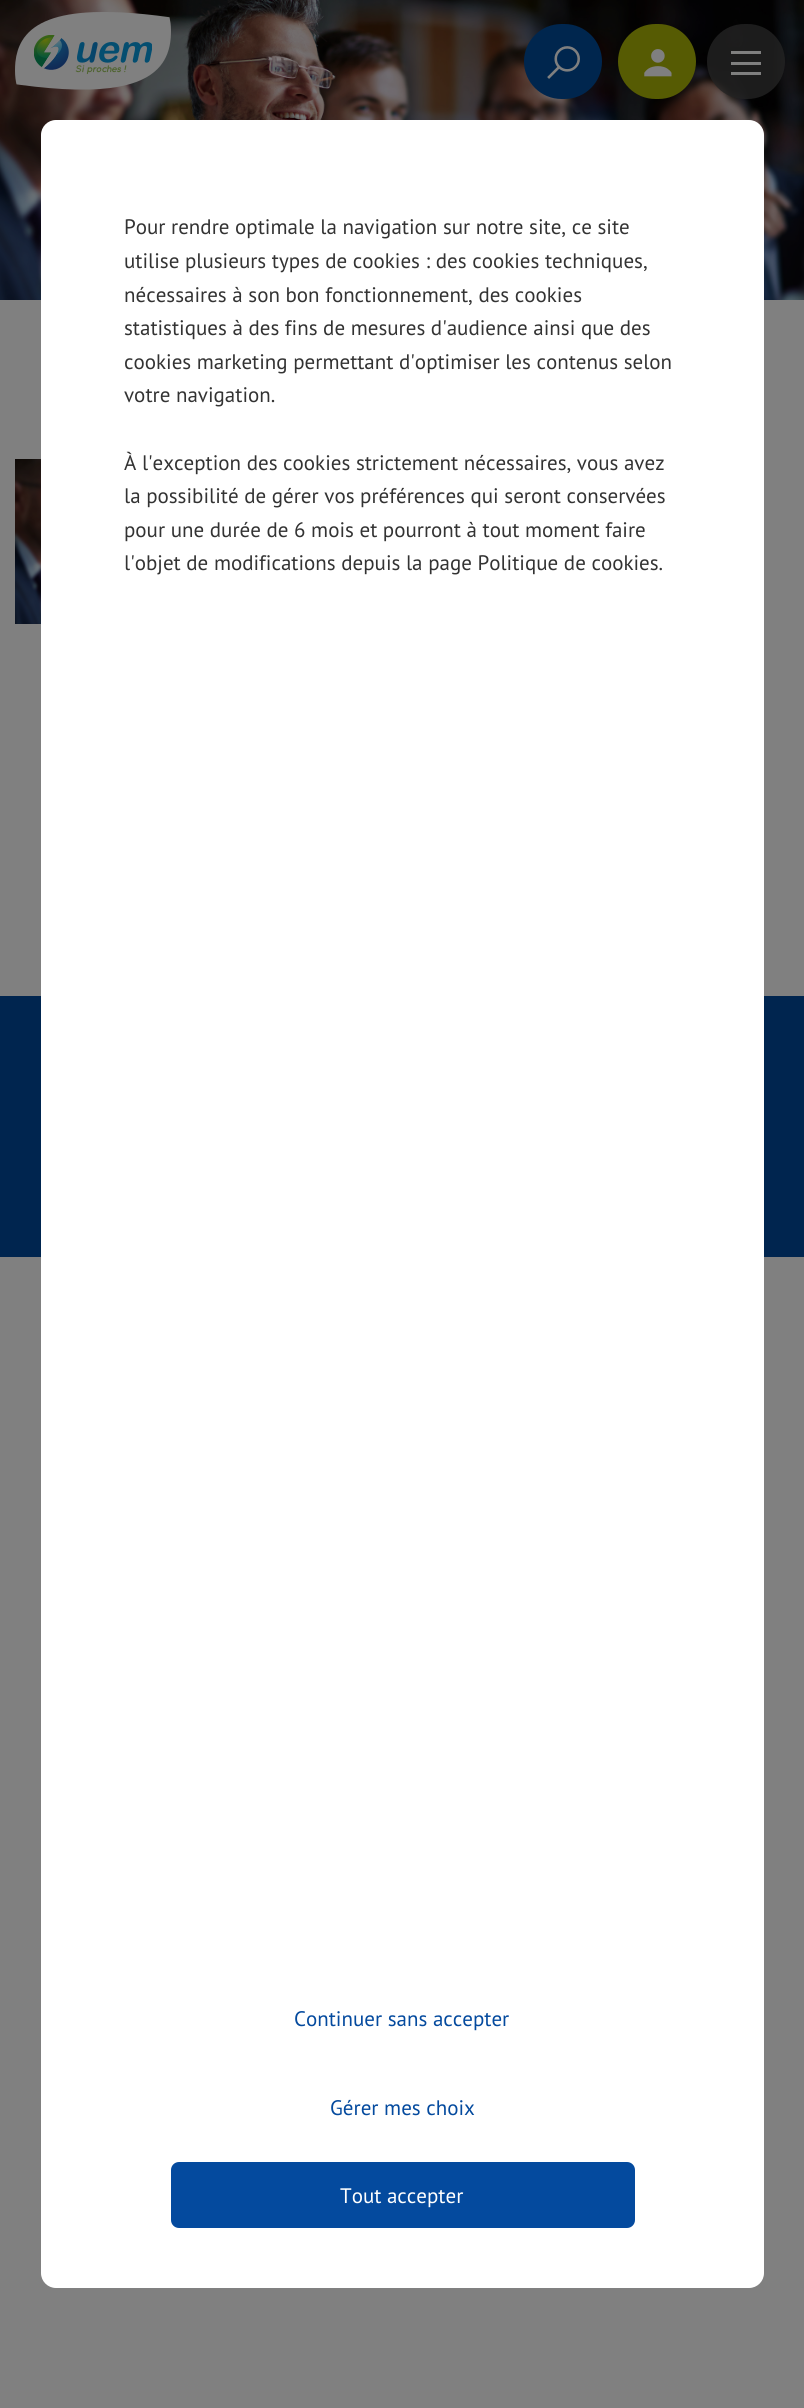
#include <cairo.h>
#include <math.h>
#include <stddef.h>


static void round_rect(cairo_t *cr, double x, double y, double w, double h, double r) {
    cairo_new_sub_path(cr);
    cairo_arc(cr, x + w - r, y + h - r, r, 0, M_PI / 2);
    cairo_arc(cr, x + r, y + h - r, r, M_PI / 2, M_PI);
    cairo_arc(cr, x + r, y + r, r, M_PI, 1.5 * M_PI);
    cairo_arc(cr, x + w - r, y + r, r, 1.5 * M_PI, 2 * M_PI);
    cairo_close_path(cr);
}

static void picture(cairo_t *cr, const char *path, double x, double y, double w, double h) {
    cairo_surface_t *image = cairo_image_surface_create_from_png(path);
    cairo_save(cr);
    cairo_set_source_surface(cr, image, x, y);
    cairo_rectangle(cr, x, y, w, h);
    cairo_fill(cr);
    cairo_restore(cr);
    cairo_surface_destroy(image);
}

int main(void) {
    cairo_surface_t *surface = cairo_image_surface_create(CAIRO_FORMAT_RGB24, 804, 2408);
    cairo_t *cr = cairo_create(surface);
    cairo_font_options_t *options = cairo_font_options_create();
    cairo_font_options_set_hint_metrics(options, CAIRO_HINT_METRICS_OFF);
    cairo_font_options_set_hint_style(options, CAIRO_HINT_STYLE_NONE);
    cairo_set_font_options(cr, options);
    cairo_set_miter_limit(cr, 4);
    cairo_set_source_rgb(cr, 0.502, 0.502, 0.502);
    cairo_paint(cr);
    picture(cr, "img1.png", 0, 0, 804, 300);
    picture(cr, "img2.png", 15, 12, 156, 78);
    cairo_set_source_rgb(cr, 0, 0.149, 0.306);
    round_rect(cr, 525.5, 25.5, 75, 72, 36);
    cairo_fill_preserve(cr);
    cairo_set_line_width(cr, 3);
    cairo_stroke(cr);
    picture(cr, "img3.png", 547, 46, 33, 33);
    cairo_set_source_rgb(cr, 0.337, 0.357, 0.012);
    round_rect(cr, 619.5, 25.5, 75, 72, 36);
    cairo_fill_preserve(cr);
    cairo_stroke(cr);
    picture(cr, "img4.png", 644, 49, 28, 28);
    cairo_set_source_rgba(cr, 0.141, 0.141, 0.141, 0.8);
    round_rect(cr, 707, 24, 78, 75, 37.5);
    cairo_fill(cr);
    cairo_set_source_rgb(cr, 0.498, 0.498, 0.498);
    cairo_rectangle(cr, 731, 51, 30, 3);
    cairo_fill(cr);
    cairo_rectangle(cr, 731, 62, 30, 3);
    cairo_fill(cr);
    cairo_rectangle(cr, 731, 72, 30, 3);
    cairo_fill(cr);
    picture(cr, "img5.png", 15, 459, 26, 165);
    cairo_set_source_rgb(cr, 0, 0.145, 0.31);
    cairo_rectangle(cr, 0, 996, 804, 261);
    cairo_fill(cr);
    cairo_set_source_rgb(cr, 1, 1, 1);
    round_rect(cr, 41, 120, 723, 2168, 15);
    cairo_fill(cr);
    cairo_select_font_face(cr, "PT Sans", CAIRO_FONT_SLANT_NORMAL, CAIRO_FONT_WEIGHT_NORMAL);
    cairo_set_font_size(cr, 21);
    cairo_set_source_rgb(cr, 0.2, 0.2, 0.2);
    cairo_move_to(cr, 124, 234);
    cairo_show_text(cr, "Pour rendre optimale la navigation sur notre site, ce site");
    cairo_move_to(cr, 124, 268);
    cairo_show_text(cr, "utilise plusieurs types de cookies : des cookies techniques,");
    cairo_move_to(cr, 124, 302);
    cairo_show_text(cr, "nécessaires à son bon fonctionnement, des cookies");
    cairo_move_to(cr, 124, 335);
    cairo_show_text(cr, "statistiques à des fins de mesures d'audience ainsi que des");
    cairo_move_to(cr, 124, 369);
    cairo_show_text(cr, "cookies marketing permettant d'optimiser les contenus selon");
    cairo_move_to(cr, 124, 402);
    cairo_show_text(cr, "votre navigation.");
    cairo_move_to(cr, 124, 470);
    cairo_show_text(cr, "À l'exception des cookies strictement nécessaires, vous avez");
    cairo_move_to(cr, 124, 503);
    cairo_show_text(cr, "la possibilité de gérer vos préférences qui seront conservées");
    cairo_move_to(cr, 124, 537);
    cairo_show_text(cr, "pour une durée de 6 mois et pourront à tout moment faire");
    cairo_move_to(cr, 124, 570);
    cairo_show_text(cr, "l'objet de modifications depuis la page Politique de cookies.");
    cairo_set_source_rgb(cr, 0.016, 0.29, 0.62);
    cairo_move_to(cr, 294, 2026);
    cairo_show_text(cr, "Continuer sans accepter");
    cairo_move_to(cr, 330, 2115);
    cairo_show_text(cr, "Gérer mes choix");
    round_rect(cr, 171, 2162, 464, 66, 8);
    cairo_fill(cr);
    cairo_set_source_rgb(cr, 1, 1, 1);
    cairo_move_to(cr, 340, 2203);
    cairo_show_text(cr, "Tout accepter");
    cairo_surface_write_to_png(surface, "page.png");
    cairo_font_options_destroy(options);
    cairo_destroy(cr);
    cairo_surface_destroy(surface);
    return 0;
}
